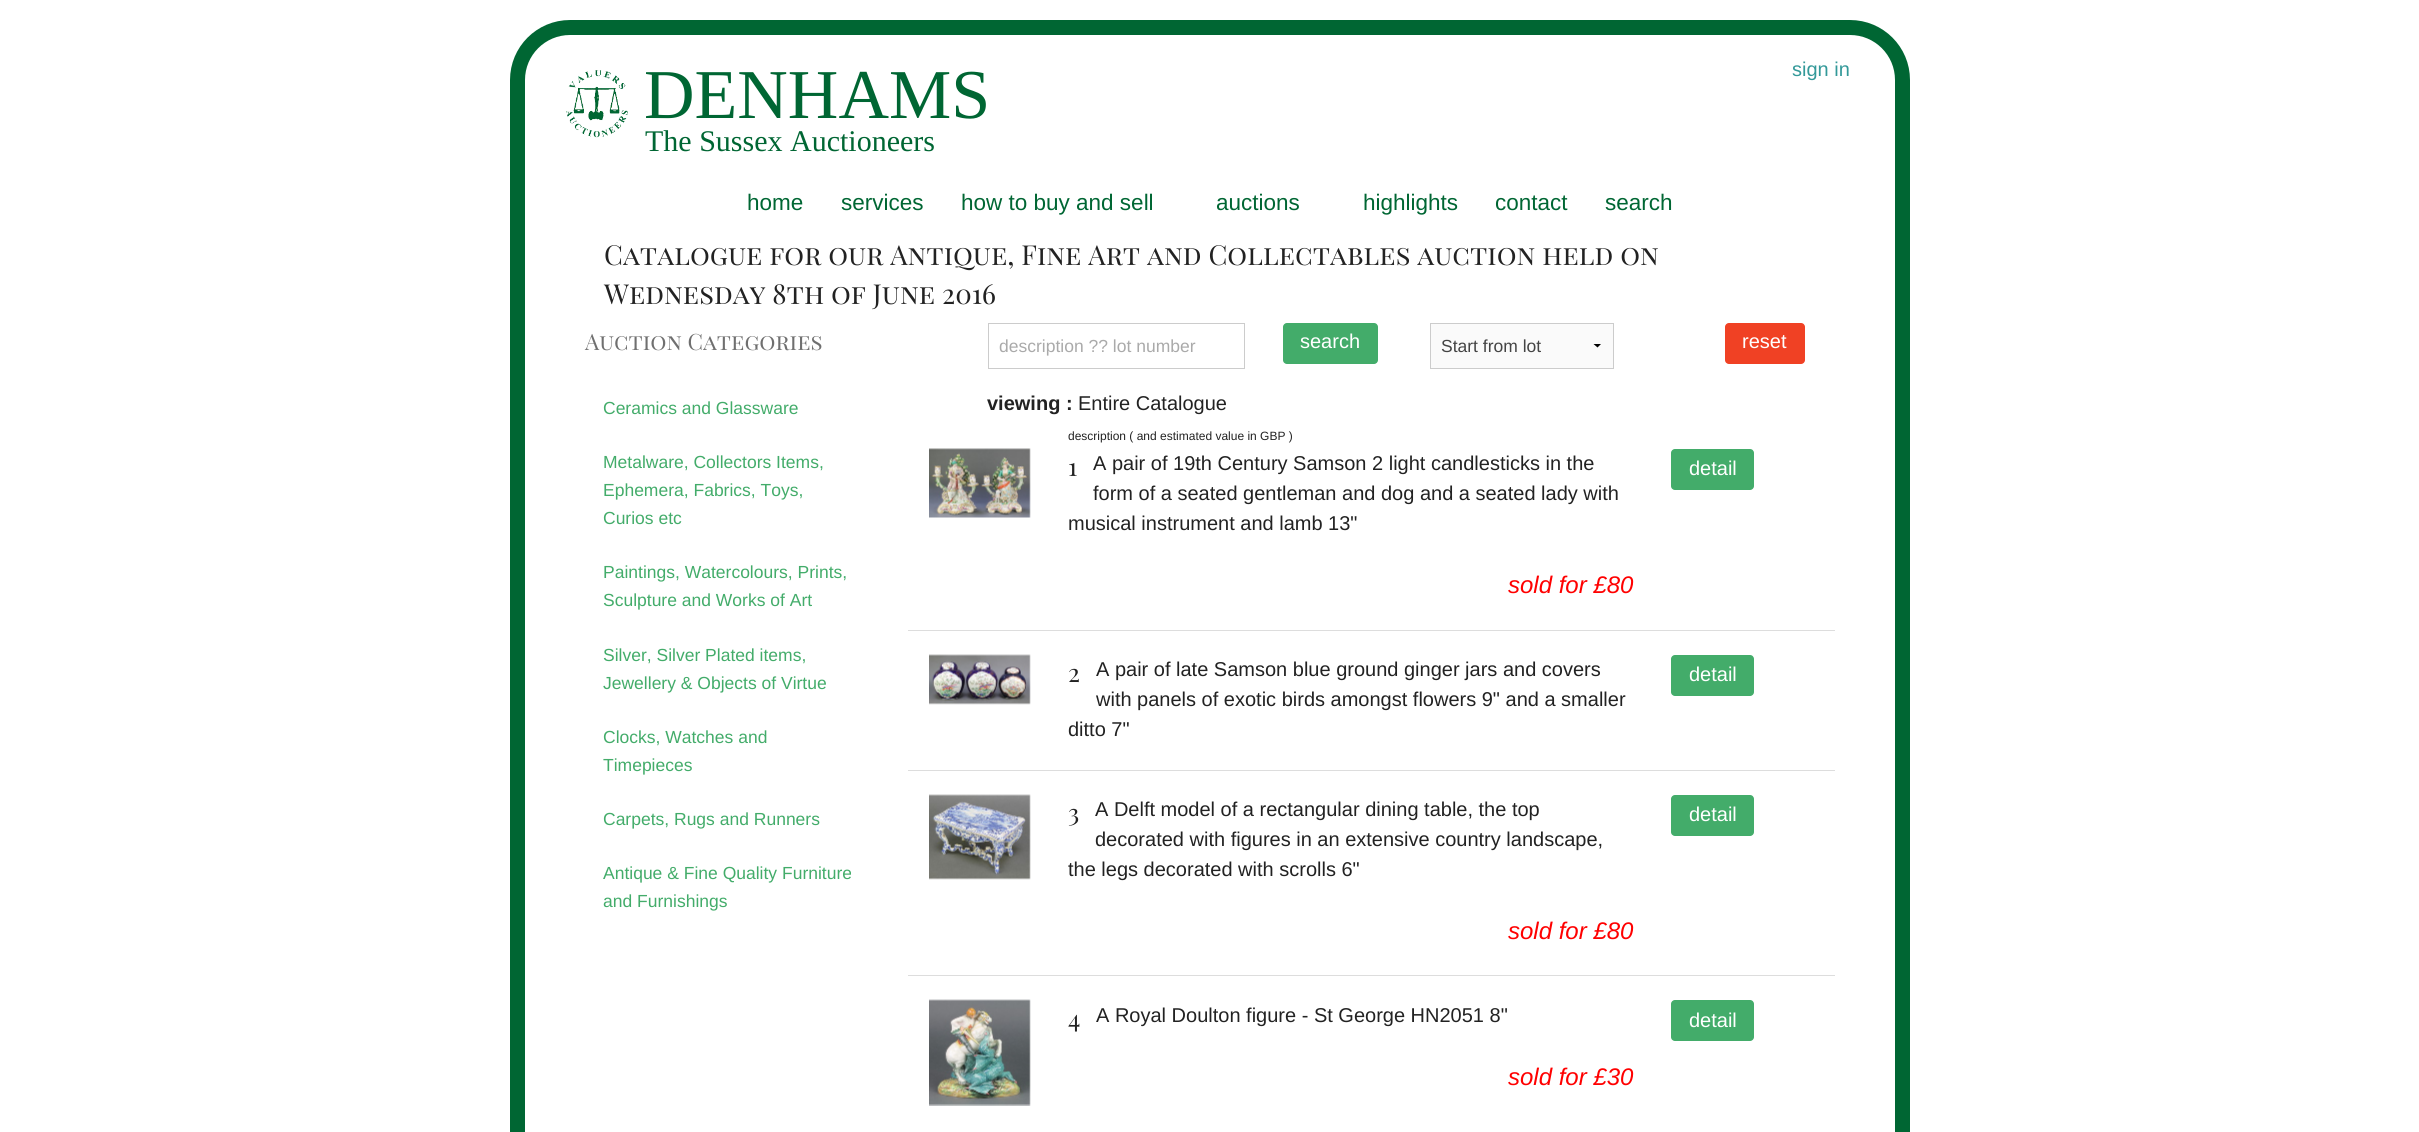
#include <cairo.h>
#include <math.h>
#include <stddef.h>


static void round_rect(cairo_t *cr, double x, double y, double w, double h, double r) {
    cairo_new_sub_path(cr);
    cairo_arc(cr, x + w - r, y + h - r, r, 0, M_PI / 2);
    cairo_arc(cr, x + r, y + h - r, r, M_PI / 2, M_PI);
    cairo_arc(cr, x + r, y + r, r, M_PI, 1.5 * M_PI);
    cairo_arc(cr, x + w - r, y + r, r, 1.5 * M_PI, 2 * M_PI);
    cairo_close_path(cr);
}

static void picture(cairo_t *cr, const char *path, double x, double y, double w, double h) {
    cairo_surface_t *image = cairo_image_surface_create_from_png(path);
    cairo_save(cr);
    cairo_set_source_surface(cr, image, x, y);
    cairo_rectangle(cr, x, y, w, h);
    cairo_fill(cr);
    cairo_restore(cr);
    cairo_surface_destroy(image);
}

int main(void) {
    cairo_surface_t *surface = cairo_image_surface_create(CAIRO_FORMAT_RGB24, 2419, 1132);
    cairo_t *cr = cairo_create(surface);
    cairo_font_options_t *options = cairo_font_options_create();
    cairo_font_options_set_hint_metrics(options, CAIRO_HINT_METRICS_OFF);
    cairo_font_options_set_hint_style(options, CAIRO_HINT_STYLE_NONE);
    cairo_set_font_options(cr, options);
    cairo_set_miter_limit(cr, 4);
    cairo_set_source_rgb(cr, 1, 1, 1);
    cairo_paint(cr);
    round_rect(cr, 517.5, 27.5, 1385, 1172, 52.5);
    cairo_set_source_rgb(cr, 0, 0.4, 0.2);
    cairo_set_line_width(cr, 15);
    cairo_stroke(cr);
    picture(cr, "img1.png", 566, 70, 62, 68);
    cairo_select_font_face(cr, "Liberation Serif", CAIRO_FONT_SLANT_NORMAL, CAIRO_FONT_WEIGHT_NORMAL);
    cairo_set_font_size(cr, 70);
    cairo_move_to(cr, 644, 118);
    cairo_show_text(cr, "DENHAMS");
    cairo_select_font_face(cr, "Liberation Sans", CAIRO_FONT_SLANT_NORMAL, CAIRO_FONT_WEIGHT_NORMAL);
    cairo_set_font_size(cr, 20);
    cairo_set_source_rgb(cr, 0.2, 0.6, 0.6);
    cairo_move_to(cr, 1792, 76);
    cairo_show_text(cr, "sign in");
    cairo_select_font_face(cr, "Liberation Serif", CAIRO_FONT_SLANT_NORMAL, CAIRO_FONT_WEIGHT_NORMAL);
    cairo_set_font_size(cr, 30);
    cairo_set_source_rgb(cr, 0, 0.4, 0.2);
    cairo_move_to(cr, 645, 151);
    cairo_show_text(cr, "The Sussex Auctioneers");
    cairo_select_font_face(cr, "Liberation Sans", CAIRO_FONT_SLANT_NORMAL, CAIRO_FONT_WEIGHT_NORMAL);
    cairo_set_font_size(cr, 22.5);
    cairo_move_to(cr, 747, 210);
    cairo_show_text(cr, "home");
    cairo_move_to(cr, 841, 210);
    cairo_show_text(cr, "services");
    cairo_move_to(cr, 961, 210);
    cairo_show_text(cr, "how to buy and sell");
    cairo_move_to(cr, 1216, 210);
    cairo_show_text(cr, "auctions");
    cairo_move_to(cr, 1363, 210);
    cairo_show_text(cr, "highlights");
    cairo_move_to(cr, 1495, 210);
    cairo_show_text(cr, "contact");
    cairo_move_to(cr, 1605, 210);
    cairo_show_text(cr, "search");
    cairo_select_font_face(cr, "Playfair Display SC", CAIRO_FONT_SLANT_NORMAL, CAIRO_FONT_WEIGHT_NORMAL);
    cairo_set_font_size(cr, 27.5);
    cairo_set_source_rgb(cr, 0.133, 0.133, 0.133);
    cairo_move_to(cr, 604, 265);
    cairo_show_text(cr, "Catalogue for our Antique, Fine Art and Collectables auction held on");
    cairo_move_to(cr, 604, 304);
    cairo_show_text(cr, "Wednesday 8th of June 2016");
    cairo_set_font_size(cr, 22.5);
    cairo_set_source_rgb(cr, 0.435, 0.435, 0.435);
    cairo_move_to(cr, 585, 350);
    cairo_show_text(cr, "Auction Categories");
    cairo_select_font_face(cr, "Liberation Sans", CAIRO_FONT_SLANT_NORMAL, CAIRO_FONT_WEIGHT_NORMAL);
    cairo_set_font_size(cr, 17.5);
    cairo_set_source_rgb(cr, 0.263, 0.675, 0.416);
    cairo_move_to(cr, 603, 414);
    cairo_show_text(cr, "Ceramics and Glassware");
    cairo_move_to(cr, 603, 468);
    cairo_show_text(cr, "Metalware, Collectors Items,");
    cairo_move_to(cr, 603, 496);
    cairo_show_text(cr, "Ephemera, Fabrics, Toys,");
    cairo_move_to(cr, 603, 524);
    cairo_show_text(cr, "Curios etc");
    cairo_move_to(cr, 603, 578);
    cairo_show_text(cr, "Paintings, Watercolours, Prints,");
    cairo_move_to(cr, 603, 606);
    cairo_show_text(cr, "Sculpture and Works of Art");
    cairo_move_to(cr, 603, 661);
    cairo_show_text(cr, "Silver, Silver Plated items,");
    cairo_move_to(cr, 603, 689);
    cairo_show_text(cr, "Jewellery & Objects of Virtue");
    cairo_move_to(cr, 603, 743);
    cairo_show_text(cr, "Clocks, Watches and");
    cairo_move_to(cr, 603, 771);
    cairo_show_text(cr, "Timepieces");
    cairo_move_to(cr, 603, 825);
    cairo_show_text(cr, "Carpets, Rugs and Runners");
    cairo_move_to(cr, 603, 879);
    cairo_show_text(cr, "Antique & Fine Quality Furniture");
    cairo_move_to(cr, 603, 907);
    cairo_show_text(cr, "and Furnishings");
    cairo_rectangle(cr, 988.5, 323.5, 256, 45);
    cairo_set_source_rgb(cr, 0.8, 0.8, 0.8);
    cairo_set_line_width(cr, 1);
    cairo_stroke(cr);
    cairo_set_source_rgb(cr, 0.667, 0.667, 0.667);
    cairo_move_to(cr, 999, 352);
    cairo_show_text(cr, "description ?\077 lot number");
    cairo_set_source_rgb(cr, 0.263, 0.675, 0.416);
    round_rect(cr, 1283, 323, 95, 41, 4);
    cairo_fill(cr);
    cairo_set_font_size(cr, 20);
    cairo_set_source_rgb(cr, 1, 1, 1);
    cairo_move_to(cr, 1300, 348);
    cairo_show_text(cr, "search");
    cairo_set_source_rgb(cr, 0.941, 0.255, 0.141);
    round_rect(cr, 1725, 323, 80, 41, 4);
    cairo_fill(cr);
    cairo_set_source_rgb(cr, 1, 1, 1);
    cairo_move_to(cr, 1742, 348);
    cairo_show_text(cr, "reset");
    cairo_set_source_rgb(cr, 0.98, 0.98, 0.98);
    cairo_rectangle(cr, 1431, 324, 182, 44);
    cairo_fill(cr);
    cairo_set_source_rgb(cr, 0, 0, 0);
    cairo_new_path(cr);
    cairo_move_to(cr, 1601, 344);
    cairo_line_to(cr, 1597.5, 347.5);
    cairo_line_to(cr, 1593.5, 344);
    cairo_close_path(cr);
    cairo_fill(cr);
    cairo_rectangle(cr, 1430.5, 323.5, 183, 45);
    cairo_set_source_rgb(cr, 0.8, 0.8, 0.8);
    cairo_stroke(cr);
    cairo_set_font_size(cr, 17.5);
    cairo_set_source_rgb(cr, 0.267, 0.267, 0.267);
    cairo_move_to(cr, 1441, 352);
    cairo_show_text(cr, "Start from lot");
    cairo_select_font_face(cr, "Liberation Sans", CAIRO_FONT_SLANT_NORMAL, CAIRO_FONT_WEIGHT_BOLD);
    cairo_set_font_size(cr, 20);
    cairo_set_source_rgb(cr, 0.133, 0.133, 0.133);
    cairo_move_to(cr, 987, 410);
    cairo_show_text(cr, "viewing :");
    cairo_select_font_face(cr, "Liberation Sans", CAIRO_FONT_SLANT_NORMAL, CAIRO_FONT_WEIGHT_NORMAL);
    cairo_move_to(cr, 1078, 410);
    cairo_show_text(cr, "Entire Catalogue");
    cairo_set_font_size(cr, 12);
    cairo_move_to(cr, 1068, 440);
    cairo_show_text(cr, "description ( and estimated value in GBP )");
    picture(cr, "img2.png", 929, 448, 102, 70);
    cairo_set_font_size(cr, 20);
    cairo_move_to(cr, 1093, 470);
    cairo_show_text(cr, "A pair of 19th Century Samson 2 light candlesticks in the");
    cairo_move_to(cr, 1093, 500);
    cairo_show_text(cr, "form of a seated gentleman and dog and a seated lady with");
    cairo_move_to(cr, 1068, 530);
    cairo_show_text(cr, "musical instrument and lamb 13\"");
    cairo_select_font_face(cr, "Liberation Sans", CAIRO_FONT_SLANT_ITALIC, CAIRO_FONT_WEIGHT_NORMAL);
    cairo_set_font_size(cr, 24);
    cairo_set_source_rgb(cr, 1, 0, 0);
    cairo_move_to(cr, 1508, 593);
    cairo_show_text(cr, "sold for £80");
    cairo_select_font_face(cr, "Playfair Display SC", CAIRO_FONT_SLANT_NORMAL, CAIRO_FONT_WEIGHT_NORMAL);
    cairo_set_font_size(cr, 25);
    cairo_set_source_rgb(cr, 0.133, 0.133, 0.133);
    cairo_move_to(cr, 1068, 476);
    cairo_show_text(cr, "1");
    cairo_set_source_rgb(cr, 0.263, 0.675, 0.416);
    round_rect(cr, 1671, 449, 83, 41, 4);
    cairo_fill(cr);
    cairo_select_font_face(cr, "Liberation Sans", CAIRO_FONT_SLANT_NORMAL, CAIRO_FONT_WEIGHT_NORMAL);
    cairo_set_font_size(cr, 20);
    cairo_set_source_rgb(cr, 1, 1, 1);
    cairo_move_to(cr, 1689, 475);
    cairo_show_text(cr, "detail");
    cairo_set_source_rgb(cr, 0.867, 0.867, 0.867);
    cairo_rectangle(cr, 908, 630, 927, 1);
    cairo_fill(cr);
    picture(cr, "img3.png", 929, 654, 102, 51);
    cairo_select_font_face(cr, "Playfair Display SC", CAIRO_FONT_SLANT_NORMAL, CAIRO_FONT_WEIGHT_NORMAL);
    cairo_set_font_size(cr, 25);
    cairo_set_source_rgb(cr, 0.133, 0.133, 0.133);
    cairo_move_to(cr, 1068, 682);
    cairo_show_text(cr, "2");
    cairo_select_font_face(cr, "Liberation Sans", CAIRO_FONT_SLANT_NORMAL, CAIRO_FONT_WEIGHT_NORMAL);
    cairo_set_font_size(cr, 20);
    cairo_move_to(cr, 1096, 676);
    cairo_show_text(cr, "A pair of late Samson blue ground ginger jars and covers");
    cairo_move_to(cr, 1096, 706);
    cairo_show_text(cr, "with panels of exotic birds amongst flowers 9\" and a smaller");
    cairo_move_to(cr, 1068, 736);
    cairo_show_text(cr, "ditto 7\"");
    cairo_set_source_rgb(cr, 0.263, 0.675, 0.416);
    round_rect(cr, 1671, 655, 83, 41, 4);
    cairo_fill(cr);
    cairo_set_source_rgb(cr, 1, 1, 1);
    cairo_move_to(cr, 1689, 681);
    cairo_show_text(cr, "detail");
    cairo_set_source_rgb(cr, 0.867, 0.867, 0.867);
    cairo_rectangle(cr, 908, 770, 927, 1);
    cairo_fill(cr);
    picture(cr, "img4.png", 929, 794, 102, 86);
    cairo_set_source_rgb(cr, 0.133, 0.133, 0.133);
    cairo_move_to(cr, 1095, 816);
    cairo_show_text(cr, "A Delft model of a rectangular dining table, the top");
    cairo_move_to(cr, 1095, 846);
    cairo_show_text(cr, "decorated with figures in an extensive country landscape,");
    cairo_move_to(cr, 1068, 876);
    cairo_show_text(cr, "the legs decorated with scrolls 6\"");
    cairo_select_font_face(cr, "Liberation Sans", CAIRO_FONT_SLANT_ITALIC, CAIRO_FONT_WEIGHT_NORMAL);
    cairo_set_font_size(cr, 24);
    cairo_set_source_rgb(cr, 1, 0, 0);
    cairo_move_to(cr, 1508, 939);
    cairo_show_text(cr, "sold for £80");
    cairo_select_font_face(cr, "Playfair Display SC", CAIRO_FONT_SLANT_NORMAL, CAIRO_FONT_WEIGHT_NORMAL);
    cairo_set_font_size(cr, 25);
    cairo_set_source_rgb(cr, 0.133, 0.133, 0.133);
    cairo_move_to(cr, 1068, 822);
    cairo_show_text(cr, "3");
    cairo_set_source_rgb(cr, 0.263, 0.675, 0.416);
    round_rect(cr, 1671, 795, 83, 41, 4);
    cairo_fill(cr);
    cairo_select_font_face(cr, "Liberation Sans", CAIRO_FONT_SLANT_NORMAL, CAIRO_FONT_WEIGHT_NORMAL);
    cairo_set_font_size(cr, 20);
    cairo_set_source_rgb(cr, 1, 1, 1);
    cairo_move_to(cr, 1689, 821);
    cairo_show_text(cr, "detail");
    cairo_set_source_rgb(cr, 0.867, 0.867, 0.867);
    cairo_rectangle(cr, 908, 975, 927, 1);
    cairo_fill(cr);
    picture(cr, "img5.png", 929, 999, 102, 107);
    cairo_select_font_face(cr, "Playfair Display SC", CAIRO_FONT_SLANT_NORMAL, CAIRO_FONT_WEIGHT_NORMAL);
    cairo_set_font_size(cr, 25);
    cairo_set_source_rgb(cr, 0.133, 0.133, 0.133);
    cairo_move_to(cr, 1068, 1028);
    cairo_show_text(cr, "4");
    cairo_select_font_face(cr, "Liberation Sans", CAIRO_FONT_SLANT_NORMAL, CAIRO_FONT_WEIGHT_NORMAL);
    cairo_set_font_size(cr, 20);
    cairo_move_to(cr, 1096, 1022);
    cairo_show_text(cr, "A Royal Doulton figure - St George HN2051 8\"");
    cairo_select_font_face(cr, "Liberation Sans", CAIRO_FONT_SLANT_ITALIC, CAIRO_FONT_WEIGHT_NORMAL);
    cairo_set_font_size(cr, 24);
    cairo_set_source_rgb(cr, 1, 0, 0);
    cairo_move_to(cr, 1508, 1085);
    cairo_show_text(cr, "sold for £30");
    cairo_set_source_rgb(cr, 0.263, 0.675, 0.416);
    round_rect(cr, 1671, 1000, 83, 41, 4);
    cairo_fill(cr);
    cairo_select_font_face(cr, "Liberation Sans", CAIRO_FONT_SLANT_NORMAL, CAIRO_FONT_WEIGHT_NORMAL);
    cairo_set_font_size(cr, 20);
    cairo_set_source_rgb(cr, 1, 1, 1);
    cairo_move_to(cr, 1689, 1027);
    cairo_show_text(cr, "detail");
    cairo_surface_write_to_png(surface, "page.png");
    cairo_font_options_destroy(options);
    cairo_destroy(cr);
    cairo_surface_destroy(surface);
    return 0;
}
